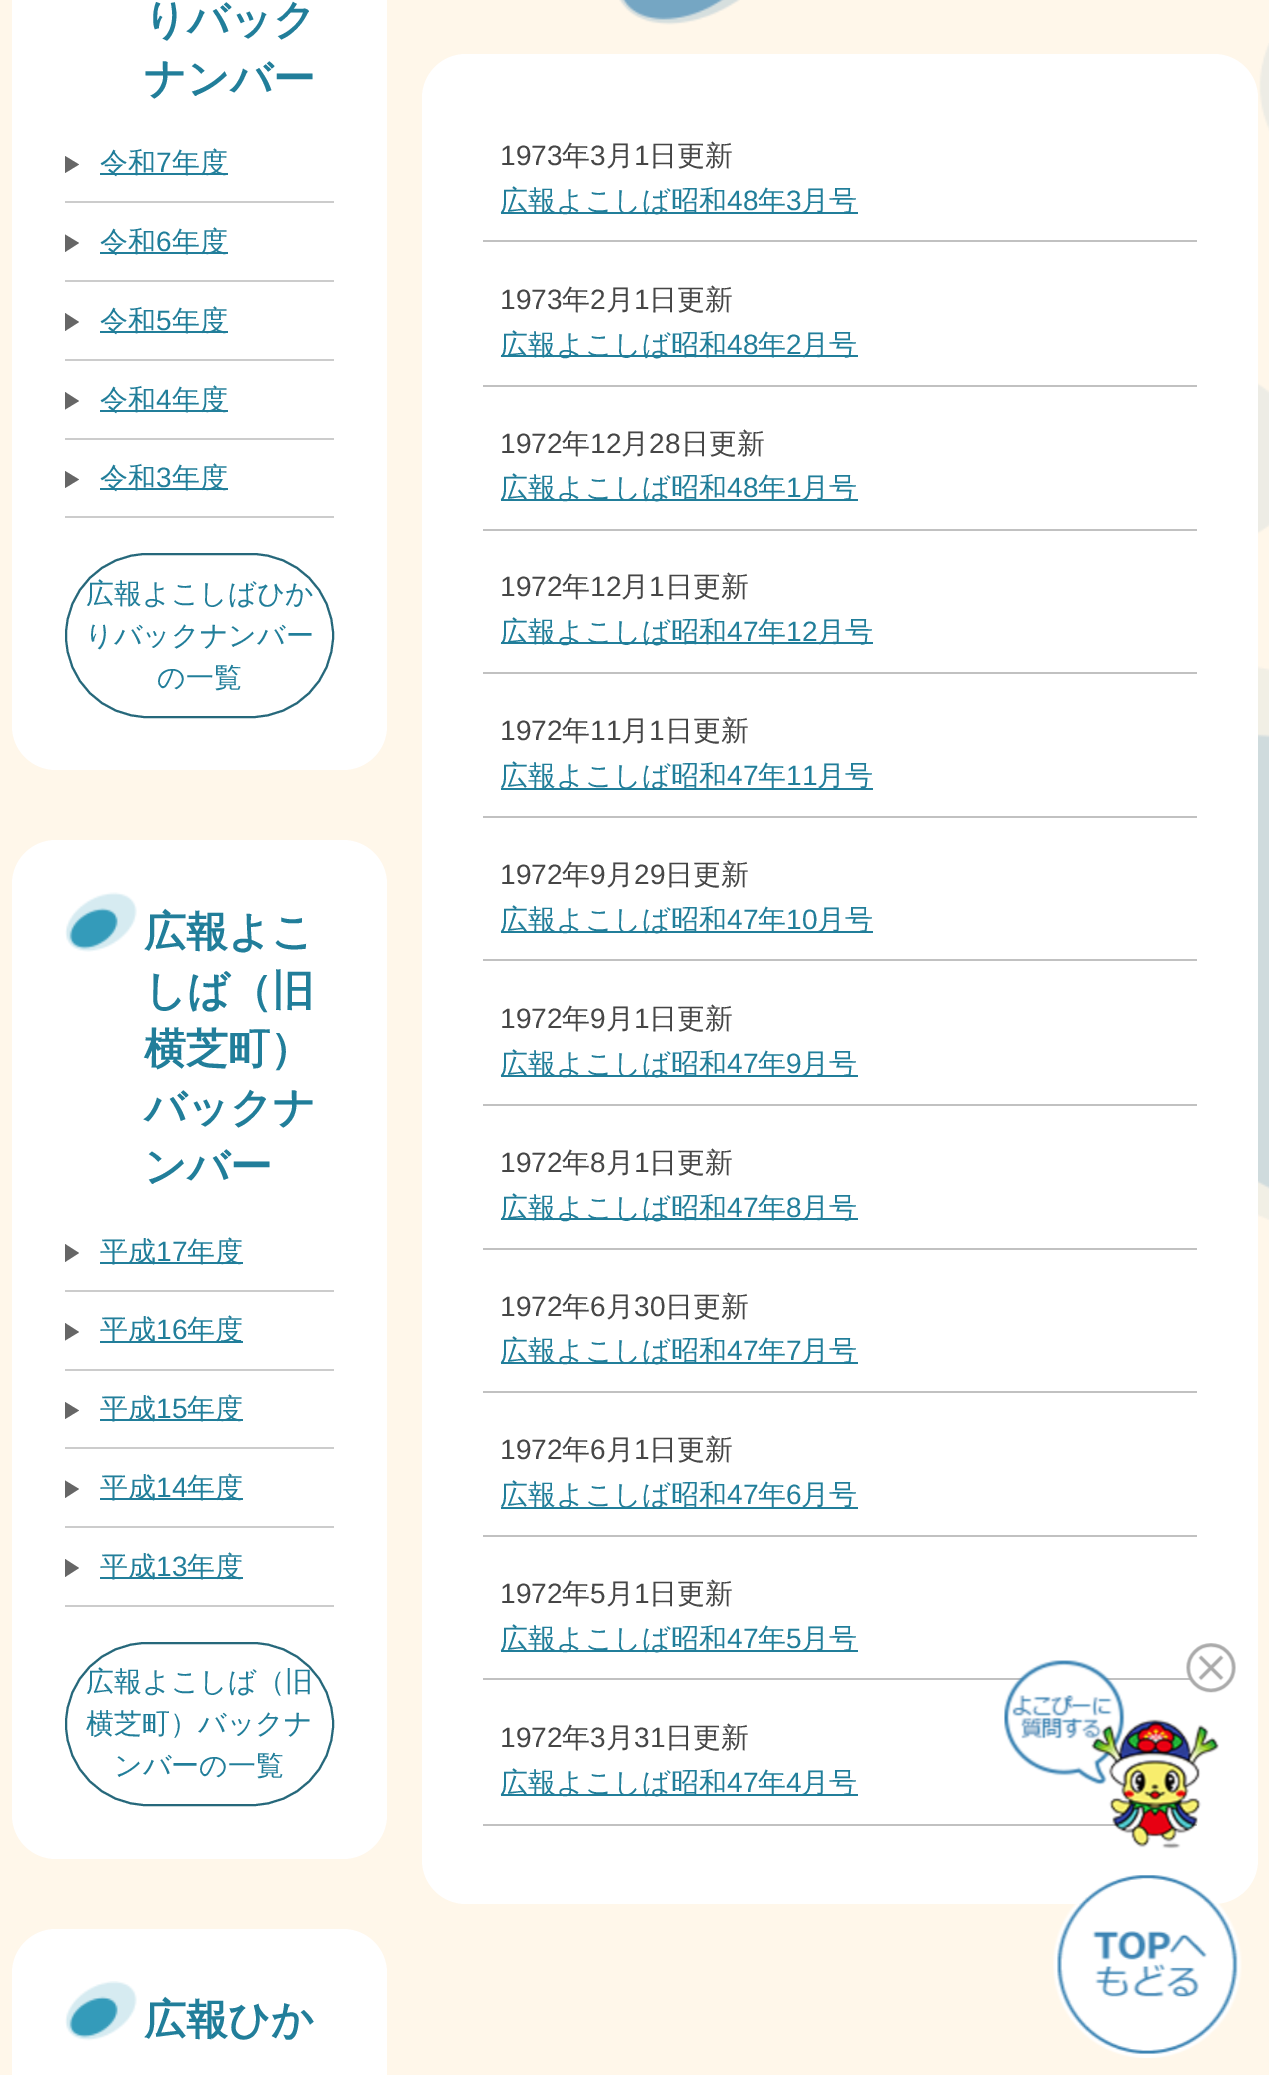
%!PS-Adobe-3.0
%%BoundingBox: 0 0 1269 2075
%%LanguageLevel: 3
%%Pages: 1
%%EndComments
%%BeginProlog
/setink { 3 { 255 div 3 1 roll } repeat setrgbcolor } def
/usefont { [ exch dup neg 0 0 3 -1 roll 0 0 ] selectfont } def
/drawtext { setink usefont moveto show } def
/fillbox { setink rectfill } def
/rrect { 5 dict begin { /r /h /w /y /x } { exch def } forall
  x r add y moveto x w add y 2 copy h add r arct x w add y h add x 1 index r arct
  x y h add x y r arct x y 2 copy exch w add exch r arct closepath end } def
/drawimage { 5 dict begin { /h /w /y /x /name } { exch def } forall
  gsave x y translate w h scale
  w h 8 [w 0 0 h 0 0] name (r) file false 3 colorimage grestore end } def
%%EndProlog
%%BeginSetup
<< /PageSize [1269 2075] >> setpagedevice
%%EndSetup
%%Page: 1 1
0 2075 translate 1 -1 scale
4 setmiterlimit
0 0 1269 2075 255 247 234 fillbox
(assets/img1.rgb) 1258 43 11 1177 drawimage
255 255 255 setink
12 -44 375 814 44 rrect fill
(りバック) 144 34 /WenQuanYiZenHei-Bold 42 33 126 154 drawtext
(ナンバー) 144 93 /WenQuanYiZenHei-Bold 42 33 126 154 drawtext
65 201 269 2 204 204 204 fillbox
102 102 102 setink
65 173 moveto 65 156 lineto 79 164.5 lineto closepath fill
100 173 128 2 33 126 154 fillbox
(令和) 100 172 /WenQuanYiZenHei-Medium 28 33 126 154 drawtext
(7) 156 172 /LiberationSans-Regular 28 33 126 154 drawtext
(年度) 172 172 /WenQuanYiZenHei-Medium 28 33 126 154 drawtext
65 280 269 2 204 204 204 fillbox
102 102 102 setink
65 252 moveto 65 234.5 lineto 79 243 lineto closepath fill
100 252 128 2 33 126 154 fillbox
(令和) 100 251 /WenQuanYiZenHei-Medium 28 33 126 154 drawtext
(6) 156 251 /LiberationSans-Regular 28 33 126 154 drawtext
(年度) 172 251 /WenQuanYiZenHei-Medium 28 33 126 154 drawtext
65 359 269 2 204 204 204 fillbox
102 102 102 setink
65 331 moveto 65 313 lineto 79 322 lineto closepath fill
100 331 128 2 33 126 154 fillbox
(令和) 100 330 /WenQuanYiZenHei-Medium 28 33 126 154 drawtext
(5) 156 330 /LiberationSans-Regular 28 33 126 154 drawtext
(年度) 172 330 /WenQuanYiZenHei-Medium 28 33 126 154 drawtext
65 438 269 2 204 204 204 fillbox
102 102 102 setink
65 409.5 moveto 65 392 lineto 79 401 lineto closepath fill
100 410 128 2 33 126 154 fillbox
(令和) 100 409 /WenQuanYiZenHei-Medium 28 33 126 154 drawtext
(4) 156 409 /LiberationSans-Regular 28 33 126 154 drawtext
(年度) 172 409 /WenQuanYiZenHei-Medium 28 33 126 154 drawtext
65 516 269 2 204 204 204 fillbox
102 102 102 setink
65 488 moveto 65 471 lineto 79 479.5 lineto closepath fill
100 488 128 2 33 126 154 fillbox
(令和) 100 487 /WenQuanYiZenHei-Medium 28 33 126 154 drawtext
(3) 156 487 /LiberationSans-Regular 28 33 126 154 drawtext
(年度) 172 487 /WenQuanYiZenHei-Medium 28 33 126 154 drawtext
38 104 123 setink
2 setlinewidth
66 554 267 163 81.5 rrect stroke
(広報よこしばひか) 86 603 /WenQuanYiZenHei-Medium 28 33 126 154 drawtext
(りバックナンバー) 85 645 /WenQuanYiZenHei-Medium 28 33 126 154 drawtext
(の一覧) 157 687 /WenQuanYiZenHei-Medium 28 33 126 154 drawtext
255 255 255 setink
12 840 375 1019 44 rrect fill
(assets/img2.rgb) 65 892 72 60 drawimage
(広報よこ) 144 946 /WenQuanYiZenHei-Bold 42 33 126 154 drawtext
(しば（旧) 144 1005 /WenQuanYiZenHei-Bold 42 33 126 154 drawtext
(横芝町）) 144 1063 /WenQuanYiZenHei-Bold 42 33 126 154 drawtext
(バックナ) 144 1122 /WenQuanYiZenHei-Bold 42 33 126 154 drawtext
(ンバー) 144 1181 /WenQuanYiZenHei-Bold 42 33 126 154 drawtext
65 1290 269 2 204 204 204 fillbox
102 102 102 setink
65 1262 moveto 65 1244 lineto 79 1253 lineto closepath fill
100 1262 143 2 33 126 154 fillbox
(平成) 100 1261 /WenQuanYiZenHei-Medium 28 33 126 154 drawtext
(17) 156 1261 /LiberationSans-Regular 28 33 126 154 drawtext
(年度) 187 1261 /WenQuanYiZenHei-Medium 28 33 126 154 drawtext
65 1369 269 2 204 204 204 fillbox
102 102 102 setink
65 1340.5 moveto 65 1323 lineto 79 1332 lineto closepath fill
100 1341 143 2 33 126 154 fillbox
(平成) 100 1339 /WenQuanYiZenHei-Medium 28 33 126 154 drawtext
(16) 156 1339 /LiberationSans-Regular 28 33 126 154 drawtext
(年度) 187 1339 /WenQuanYiZenHei-Medium 28 33 126 154 drawtext
65 1447 269 2 204 204 204 fillbox
102 102 102 setink
65 1419 moveto 65 1402 lineto 79 1410.5 lineto closepath fill
100 1419 143 2 33 126 154 fillbox
(平成) 100 1418 /WenQuanYiZenHei-Medium 28 33 126 154 drawtext
(15) 156 1418 /LiberationSans-Regular 28 33 126 154 drawtext
(年度) 187 1418 /WenQuanYiZenHei-Medium 28 33 126 154 drawtext
65 1526 269 2 204 204 204 fillbox
102 102 102 setink
65 1498 moveto 65 1480.5 lineto 79 1489 lineto closepath fill
100 1498 143 2 33 126 154 fillbox
(平成) 100 1497 /WenQuanYiZenHei-Medium 28 33 126 154 drawtext
(14) 156 1497 /LiberationSans-Regular 28 33 126 154 drawtext
(年度) 187 1497 /WenQuanYiZenHei-Medium 28 33 126 154 drawtext
65 1605 269 2 204 204 204 fillbox
102 102 102 setink
65 1577 moveto 65 1559 lineto 79 1568 lineto closepath fill
100 1577 143 2 33 126 154 fillbox
(平成) 100 1576 /WenQuanYiZenHei-Medium 28 33 126 154 drawtext
(13) 156 1576 /LiberationSans-Regular 28 33 126 154 drawtext
(年度) 187 1576 /WenQuanYiZenHei-Medium 28 33 126 154 drawtext
38 104 123 setink
66 1643 267 162 81 rrect stroke
(広報よこしば（旧) 86 1691 /WenQuanYiZenHei-Medium 28 33 126 154 drawtext
(横芝町）バックナ) 86 1733 /WenQuanYiZenHei-Medium 28 33 126 154 drawtext
(ンバーの一覧) 114 1775 /WenQuanYiZenHei-Medium 28 33 126 154 drawtext
255 255 255 setink
12 1929 375 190 44 rrect fill
(assets/img3.rgb) 65 1981 72 60 drawimage
(広報ひか) 144 2034 /WenQuanYiZenHei-Bold 42 33 126 154 drawtext
(assets/img4.rgb) 619 0 121 25 drawimage
255 255 255 setink
422 54 836 1850 44 rrect fill
483 240 714 2 193 193 193 fillbox
(1973) 500 165 /LiberationSans-Regular 28 70 70 70 drawtext
(年) 562 165 /WenQuanYiZenHei-Medium 28 70 70 70 drawtext
(3) 590 165 /LiberationSans-Regular 28 70 70 70 drawtext
(月) 606 165 /WenQuanYiZenHei-Medium 28 70 70 70 drawtext
(1) 634 165 /LiberationSans-Regular 28 70 70 70 drawtext
(日更新) 649 165 /WenQuanYiZenHei-Medium 28 70 70 70 drawtext
501 212 357 2 33 126 154 fillbox
(広報よこしば昭和) 500 210 /WenQuanYiZenHei-Medium 28 33 126 154 drawtext
(48) 727 210 /LiberationSans-Regular 28 33 126 154 drawtext
(年) 758 210 /WenQuanYiZenHei-Medium 28 33 126 154 drawtext
(3) 786 210 /LiberationSans-Regular 28 33 126 154 drawtext
(月号) 801 210 /WenQuanYiZenHei-Medium 28 33 126 154 drawtext
483 385 714 2 193 193 193 fillbox
(1973) 500 309 /LiberationSans-Regular 28 70 70 70 drawtext
(年) 562 309 /WenQuanYiZenHei-Medium 28 70 70 70 drawtext
(2) 590 309 /LiberationSans-Regular 28 70 70 70 drawtext
(月) 606 309 /WenQuanYiZenHei-Medium 28 70 70 70 drawtext
(1) 634 309 /LiberationSans-Regular 28 70 70 70 drawtext
(日更新) 649 309 /WenQuanYiZenHei-Medium 28 70 70 70 drawtext
501 355 357 2 33 126 154 fillbox
(広報よこしば昭和) 500 354 /WenQuanYiZenHei-Medium 28 33 126 154 drawtext
(48) 727 354 /LiberationSans-Regular 28 33 126 154 drawtext
(年) 758 354 /WenQuanYiZenHei-Medium 28 33 126 154 drawtext
(2) 786 354 /LiberationSans-Regular 28 33 126 154 drawtext
(月号) 801 354 /WenQuanYiZenHei-Medium 28 33 126 154 drawtext
483 529 714 2 193 193 193 fillbox
(1972) 500 453 /LiberationSans-Regular 28 70 70 70 drawtext
(年) 562 453 /WenQuanYiZenHei-Medium 28 70 70 70 drawtext
(12) 590 453 /LiberationSans-Regular 28 70 70 70 drawtext
(月) 621 453 /WenQuanYiZenHei-Medium 28 70 70 70 drawtext
(28) 649 453 /LiberationSans-Regular 28 70 70 70 drawtext
(日更新) 681 453 /WenQuanYiZenHei-Medium 28 70 70 70 drawtext
501 499 357 2 33 126 154 fillbox
(広報よこしば昭和) 500 497 /WenQuanYiZenHei-Medium 28 33 126 154 drawtext
(48) 727 497 /LiberationSans-Regular 28 33 126 154 drawtext
(年) 758 497 /WenQuanYiZenHei-Medium 28 33 126 154 drawtext
(1) 786 497 /LiberationSans-Regular 28 33 126 154 drawtext
(月号) 801 497 /WenQuanYiZenHei-Medium 28 33 126 154 drawtext
483 672 714 2 193 193 193 fillbox
(1972) 500 596 /LiberationSans-Regular 28 70 70 70 drawtext
(年) 562 596 /WenQuanYiZenHei-Medium 28 70 70 70 drawtext
(12) 590 596 /LiberationSans-Regular 28 70 70 70 drawtext
(月) 621 596 /WenQuanYiZenHei-Medium 28 70 70 70 drawtext
(1) 649 596 /LiberationSans-Regular 28 70 70 70 drawtext
(日更新) 665 596 /WenQuanYiZenHei-Medium 28 70 70 70 drawtext
501 642 372 2 33 126 154 fillbox
(広報よこしば昭和) 500 641 /WenQuanYiZenHei-Medium 28 33 126 154 drawtext
(47) 727 641 /LiberationSans-Regular 28 33 126 154 drawtext
(年) 758 641 /WenQuanYiZenHei-Medium 28 33 126 154 drawtext
(12) 786 641 /LiberationSans-Regular 28 33 126 154 drawtext
(月号) 817 641 /WenQuanYiZenHei-Medium 28 33 126 154 drawtext
483 816 714 2 193 193 193 fillbox
(1972) 500 740 /LiberationSans-Regular 28 70 70 70 drawtext
(年) 562 740 /WenQuanYiZenHei-Medium 28 70 70 70 drawtext
(11) 590 740 /LiberationSans-Regular 28 70 70 70 drawtext
(月) 621 740 /WenQuanYiZenHei-Medium 28 70 70 70 drawtext
(1) 649 740 /LiberationSans-Regular 28 70 70 70 drawtext
(日更新) 665 740 /WenQuanYiZenHei-Medium 28 70 70 70 drawtext
501 788 372 2 33 126 154 fillbox
(広報よこしば昭和) 500 785 /WenQuanYiZenHei-Medium 28 33 126 154 drawtext
(47) 727 785 /LiberationSans-Regular 28 33 126 154 drawtext
(年) 758 785 /WenQuanYiZenHei-Medium 28 33 126 154 drawtext
(11) 786 785 /LiberationSans-Regular 28 33 126 154 drawtext
(月号) 817 785 /WenQuanYiZenHei-Medium 28 33 126 154 drawtext
483 959 714 2 193 193 193 fillbox
(1972) 500 884 /LiberationSans-Regular 28 70 70 70 drawtext
(年) 562 884 /WenQuanYiZenHei-Medium 28 70 70 70 drawtext
(9) 590 884 /LiberationSans-Regular 28 70 70 70 drawtext
(月) 606 884 /WenQuanYiZenHei-Medium 28 70 70 70 drawtext
(29) 634 884 /LiberationSans-Regular 28 70 70 70 drawtext
(日更新) 665 884 /WenQuanYiZenHei-Medium 28 70 70 70 drawtext
501 931 372 2 33 126 154 fillbox
(広報よこしば昭和) 500 929 /WenQuanYiZenHei-Medium 28 33 126 154 drawtext
(47) 727 929 /LiberationSans-Regular 28 33 126 154 drawtext
(年) 758 929 /WenQuanYiZenHei-Medium 28 33 126 154 drawtext
(10) 786 929 /LiberationSans-Regular 28 33 126 154 drawtext
(月号) 817 929 /WenQuanYiZenHei-Medium 28 33 126 154 drawtext
483 1104 714 2 193 193 193 fillbox
(1972) 500 1028 /LiberationSans-Regular 28 70 70 70 drawtext
(年) 562 1028 /WenQuanYiZenHei-Medium 28 70 70 70 drawtext
(9) 590 1028 /LiberationSans-Regular 28 70 70 70 drawtext
(月) 606 1028 /WenQuanYiZenHei-Medium 28 70 70 70 drawtext
(1) 634 1028 /LiberationSans-Regular 28 70 70 70 drawtext
(日更新) 649 1028 /WenQuanYiZenHei-Medium 28 70 70 70 drawtext
501 1075 357 2 33 126 154 fillbox
(広報よこしば昭和) 500 1073 /WenQuanYiZenHei-Medium 28 33 126 154 drawtext
(47) 727 1073 /LiberationSans-Regular 28 33 126 154 drawtext
(年) 758 1073 /WenQuanYiZenHei-Medium 28 33 126 154 drawtext
(9) 786 1073 /LiberationSans-Regular 28 33 126 154 drawtext
(月号) 801 1073 /WenQuanYiZenHei-Medium 28 33 126 154 drawtext
483 1248 714 2 193 193 193 fillbox
(1972) 500 1172 /LiberationSans-Regular 28 70 70 70 drawtext
(年) 562 1172 /WenQuanYiZenHei-Medium 28 70 70 70 drawtext
(8) 590 1172 /LiberationSans-Regular 28 70 70 70 drawtext
(月) 606 1172 /WenQuanYiZenHei-Medium 28 70 70 70 drawtext
(1) 634 1172 /LiberationSans-Regular 28 70 70 70 drawtext
(日更新) 649 1172 /WenQuanYiZenHei-Medium 28 70 70 70 drawtext
501 1218 357 2 33 126 154 fillbox
(広報よこしば昭和) 500 1217 /WenQuanYiZenHei-Medium 28 33 126 154 drawtext
(47) 727 1217 /LiberationSans-Regular 28 33 126 154 drawtext
(年) 758 1217 /WenQuanYiZenHei-Medium 28 33 126 154 drawtext
(8) 786 1217 /LiberationSans-Regular 28 33 126 154 drawtext
(月号) 801 1217 /WenQuanYiZenHei-Medium 28 33 126 154 drawtext
483 1391 714 2 193 193 193 fillbox
(1972) 500 1316 /LiberationSans-Regular 28 70 70 70 drawtext
(年) 562 1316 /WenQuanYiZenHei-Medium 28 70 70 70 drawtext
(6) 590 1316 /LiberationSans-Regular 28 70 70 70 drawtext
(月) 606 1316 /WenQuanYiZenHei-Medium 28 70 70 70 drawtext
(30) 634 1316 /LiberationSans-Regular 28 70 70 70 drawtext
(日更新) 665 1316 /WenQuanYiZenHei-Medium 28 70 70 70 drawtext
501 1362 357 2 33 126 154 fillbox
(広報よこしば昭和) 500 1360 /WenQuanYiZenHei-Medium 28 33 126 154 drawtext
(47) 727 1360 /LiberationSans-Regular 28 33 126 154 drawtext
(年) 758 1360 /WenQuanYiZenHei-Medium 28 33 126 154 drawtext
(7) 786 1360 /LiberationSans-Regular 28 33 126 154 drawtext
(月号) 801 1360 /WenQuanYiZenHei-Medium 28 33 126 154 drawtext
483 1535 714 2 193 193 193 fillbox
(1972) 500 1459 /LiberationSans-Regular 28 70 70 70 drawtext
(年) 562 1459 /WenQuanYiZenHei-Medium 28 70 70 70 drawtext
(6) 590 1459 /LiberationSans-Regular 28 70 70 70 drawtext
(月) 606 1459 /WenQuanYiZenHei-Medium 28 70 70 70 drawtext
(1) 634 1459 /LiberationSans-Regular 28 70 70 70 drawtext
(日更新) 649 1459 /WenQuanYiZenHei-Medium 28 70 70 70 drawtext
501 1507 357 2 33 126 154 fillbox
(広報よこしば昭和) 500 1504 /WenQuanYiZenHei-Medium 28 33 126 154 drawtext
(47) 727 1504 /LiberationSans-Regular 28 33 126 154 drawtext
(年) 758 1504 /WenQuanYiZenHei-Medium 28 33 126 154 drawtext
(6) 786 1504 /LiberationSans-Regular 28 33 126 154 drawtext
(月号) 801 1504 /WenQuanYiZenHei-Medium 28 33 126 154 drawtext
483 1678 714 2 193 193 193 fillbox
(1972) 500 1603 /LiberationSans-Regular 28 70 70 70 drawtext
(年) 562 1603 /WenQuanYiZenHei-Medium 28 70 70 70 drawtext
(5) 590 1603 /LiberationSans-Regular 28 70 70 70 drawtext
(月) 606 1603 /WenQuanYiZenHei-Medium 28 70 70 70 drawtext
(1) 634 1603 /LiberationSans-Regular 28 70 70 70 drawtext
(日更新) 649 1603 /WenQuanYiZenHei-Medium 28 70 70 70 drawtext
501 1650 357 2 33 126 154 fillbox
(広報よこしば昭和) 500 1648 /WenQuanYiZenHei-Medium 28 33 126 154 drawtext
(47) 727 1648 /LiberationSans-Regular 28 33 126 154 drawtext
(年) 758 1648 /WenQuanYiZenHei-Medium 28 33 126 154 drawtext
(5) 786 1648 /LiberationSans-Regular 28 33 126 154 drawtext
(月号) 801 1648 /WenQuanYiZenHei-Medium 28 33 126 154 drawtext
483 1824 714 2 193 193 193 fillbox
(1972) 500 1747 /LiberationSans-Regular 28 70 70 70 drawtext
(年) 562 1747 /WenQuanYiZenHei-Medium 28 70 70 70 drawtext
(3) 590 1747 /LiberationSans-Regular 28 70 70 70 drawtext
(月) 606 1747 /WenQuanYiZenHei-Medium 28 70 70 70 drawtext
(31) 634 1747 /LiberationSans-Regular 28 70 70 70 drawtext
(日更新) 665 1747 /WenQuanYiZenHei-Medium 28 70 70 70 drawtext
501 1794 357 2 33 126 154 fillbox
(広報よこしば昭和) 500 1792 /WenQuanYiZenHei-Medium 28 33 126 154 drawtext
(47) 727 1792 /LiberationSans-Regular 28 33 126 154 drawtext
(年) 758 1792 /WenQuanYiZenHei-Medium 28 33 126 154 drawtext
(4) 786 1792 /LiberationSans-Regular 28 33 126 154 drawtext
(月号) 801 1792 /WenQuanYiZenHei-Medium 28 33 126 154 drawtext
(assets/img5.rgb) 1053 1875 189 183 drawimage
(assets/img6.rgb) 1004 1643 232 206 drawimage
showpage
%%EOF
